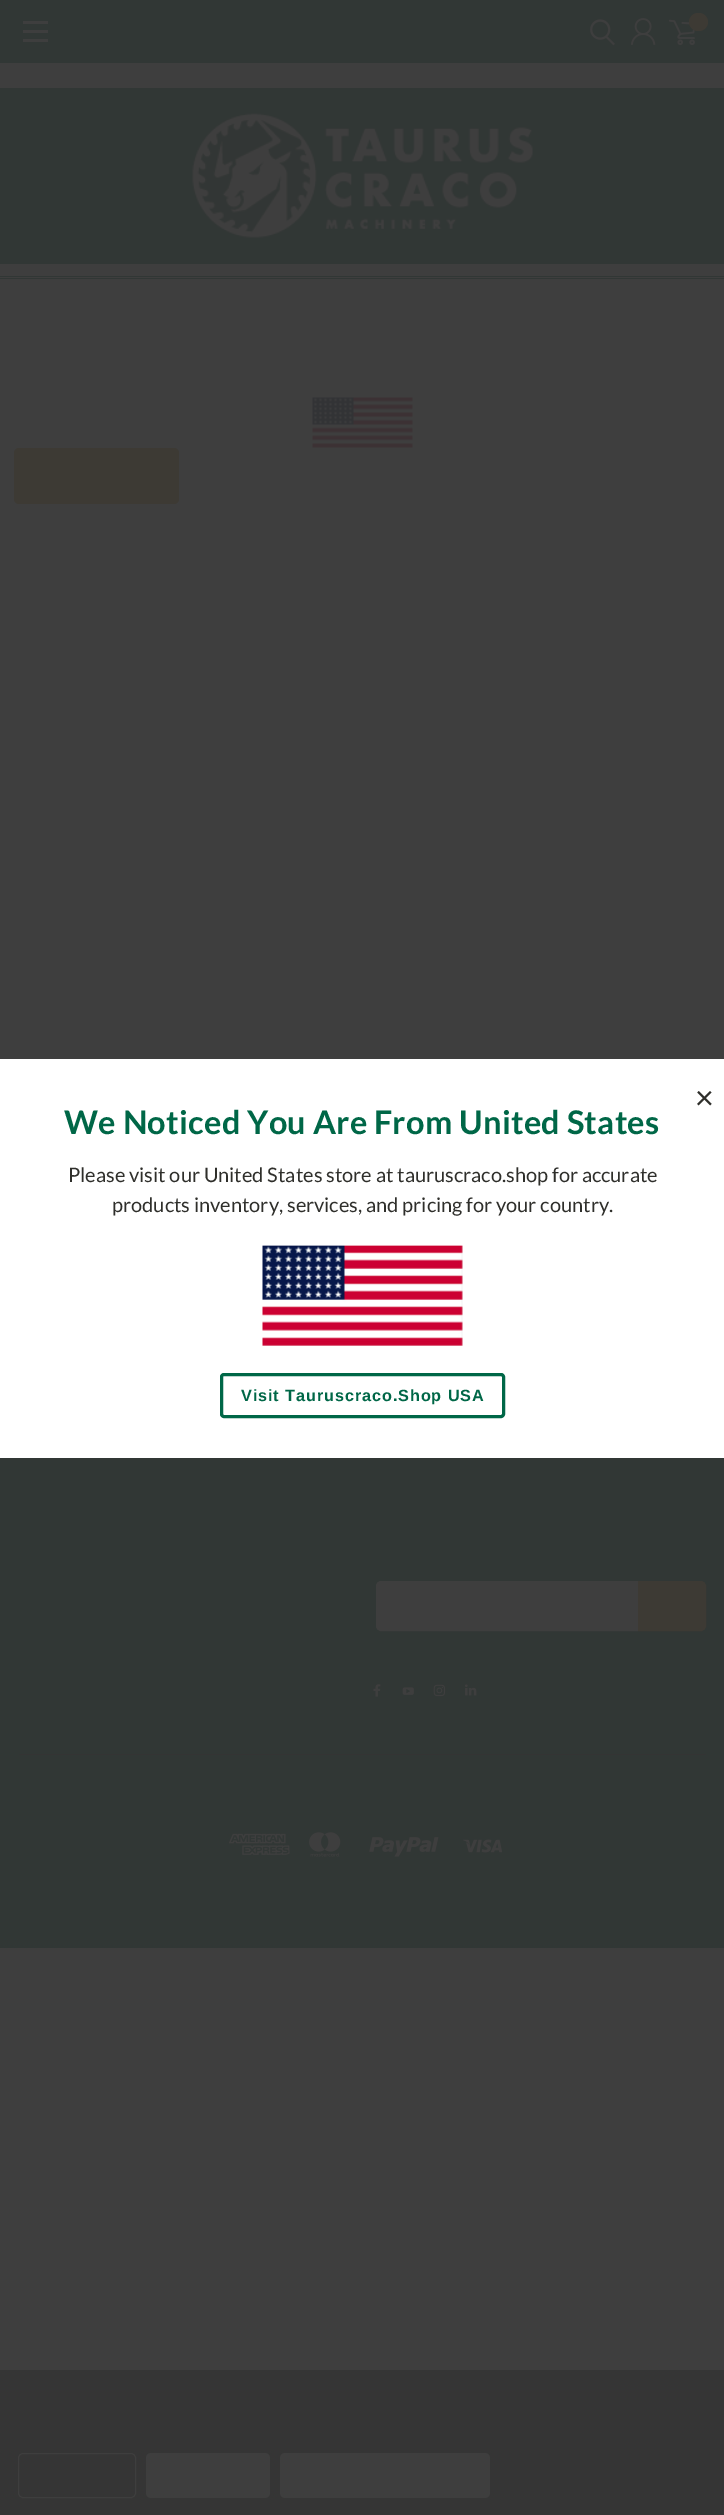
%!PS-Adobe-3.0
%%BoundingBox: 0 0 724 2515
%%LanguageLevel: 3
%%Pages: 1
%%EndComments
%%BeginProlog
/setink { 3 { 255 div 3 1 roll } repeat setrgbcolor } def
/usefont { [ exch dup neg 0 0 3 -1 roll 0 0 ] selectfont } def
/drawtext { setink usefont moveto show } def
/fillbox { setink rectfill } def
/rrect { 5 dict begin { /r /h /w /y /x } { exch def } forall
  x r add y moveto x w add y 2 copy h add r arct x w add y h add x 1 index r arct
  x y h add x y r arct x y 2 copy exch w add exch r arct closepath end } def
/drawimage { 5 dict begin { /h /w /y /x /name } { exch def } forall
  gsave x y translate w h scale
  w h 8 [w 0 0 h 0 0] name (r) file false 3 colorimage grestore end } def
%%EndProlog
%%BeginSetup
<< /PageSize [724 2515] >> setpagedevice
%%EndSetup
%%Page: 1 1
0 2515 translate 1 -1 scale
4 setmiterlimit
0 0 724 2515 62 62 62 fillbox
0 0 724 63 49 55 53 fillbox
23 30 25 3 62 62 62 fillbox
23 21 25 3 62 62 62 fillbox
23 39 25 3 62 62 62 fillbox
(assets/img1.rgb) 590 19 25 27 drawimage
(assets/img2.rgb) 631 18 25 27 drawimage
(assets/img3.rgb) 668 19 27 27 drawimage
61 58 52 setink
689 13 19 18 9 rrect fill
0 276 724 1 49 55 53 fillbox
0 278 724 1 49 55 53 fillbox
(assets/img4.rgb) 312 397 101 51 drawimage
61 58 52 setink
14 448 165 56 5 rrect fill
0 88 724 176 49 55 53 fillbox
(assets/img5.rgb) 192 113 341 125 drawimage
0 1059 724 399 255 255 255 fillbox
(×) 695 1109 /Lato-Regular 32.5 47 47 43 drawtext
/Lato-Bold 32.5 usefont
0 103 71 setink
64 1134 moveto 0.3 0 (We Noticed You Are From United States) ashow
(Please visit our United States store at tauruscraco.shop for accurate) 68 1182 /Lato-Regular 20 47 47 43 drawtext
(products inventory, services, and pricing for your country.) 112 1212 /Lato-Regular 20 47 47 43 drawtext
(assets/img6.rgb) 262 1245 201 101 drawimage
0 103 71 setink
3 setlinewidth
221.5 1374.5 282 42 2.5 rrect stroke
/LiberationSans-Bold 16.25 usefont
241 1401 moveto 0.9 0 (Visit Tauruscraco.Shop USA) ashow
0 1458 724 490 49 55 53 fillbox
62 62 62 setink
381 1581.5 moveto 637.5 1581.5 lineto 637.5 1630.5 lineto 381 1630.5 lineto 378.5 1630.5 376.5 1628.5 376.5 1626 curveto 376.5 1586 lineto 376.5 1583.5 378.5 1581.5 381 1581.5 curveto closepath gsave fill grestore
1 setlinewidth
stroke
61 58 52 setink
638.5 1581.5 moveto 701 1581.5 lineto 703.5 1581.5 705.5 1583.5 705.5 1586 curveto 705.5 1626 lineto 705.5 1628.5 703.5 1630.5 701 1630.5 curveto 638.5 1630.5 lineto closepath gsave fill grestore
stroke
(assets/img7.rgb) 373 1684 8 13 drawimage
(assets/img8.rgb) 402 1687 12 8 drawimage
(assets/img9.rgb) 433 1684 13 13 drawimage
(assets/img10.rgb) 465 1684 12 12 drawimage
19 1754 687 1 52 52 52 fillbox
(assets/img11.rgb) 229 1833 61 22 drawimage
(assets/img12.rgb) 309 1832 32 25 drawimage
(assets/img13.rgb) 369 1837 70 20 drawimage
(assets/img14.rgb) 463 1839 39 14 drawimage
0 2370 724 145 53 53 53 fillbox
62 62 62 setink
18.5 2453.5 117 44 4.5 rrect stroke
146 2453 124 45 5 rrect fill
280 2453 210 45 5 rrect fill
showpage
%%EOF
